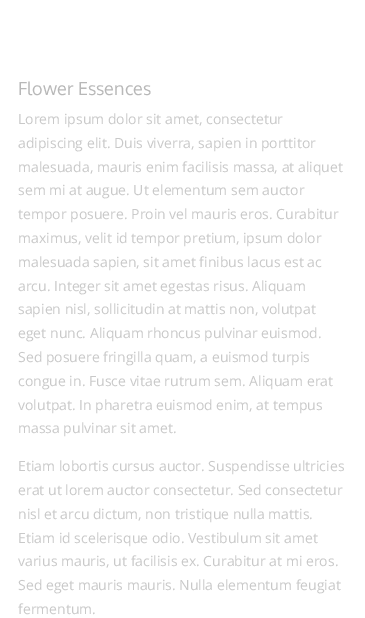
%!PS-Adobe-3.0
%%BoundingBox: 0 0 365 618
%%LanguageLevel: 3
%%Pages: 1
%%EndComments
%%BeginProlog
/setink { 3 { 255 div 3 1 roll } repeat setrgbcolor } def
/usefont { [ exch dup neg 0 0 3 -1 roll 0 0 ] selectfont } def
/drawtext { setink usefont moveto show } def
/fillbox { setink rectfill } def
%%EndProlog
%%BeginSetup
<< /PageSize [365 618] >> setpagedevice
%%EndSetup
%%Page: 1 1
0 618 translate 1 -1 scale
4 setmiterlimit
0 0 365 618 255 255 255 fillbox
(Flower Essences) 18 95 /Oxygen-Regular 18 184 184 184 drawtext
(Lorem ipsum dolor sit amet, consectetur) 18 124 /OpenSans-Regular 14 201 201 201 drawtext
(adipiscing elit. Duis viverra, sapien in porttitor) 18 148 /OpenSans-Regular 14 201 201 201 drawtext
(malesuada, mauris enim facilisis massa, at aliquet) 18 172 /OpenSans-Regular 14 201 201 201 drawtext
(sem mi at augue. Ut elementum sem auctor) 18 195 /OpenSans-Regular 14 201 201 201 drawtext
(tempor posuere. Proin vel mauris eros. Curabitur) 18 219 /OpenSans-Regular 14 201 201 201 drawtext
(maximus, velit id tempor pretium, ipsum dolor) 18 243 /OpenSans-Regular 14 201 201 201 drawtext
(malesuada sapien, sit amet finibus lacus est ac) 18 267 /OpenSans-Regular 14 201 201 201 drawtext
(arcu. Integer sit amet egestas risus. Aliquam) 18 291 /OpenSans-Regular 14 201 201 201 drawtext
(sapien nisl, sollicitudin at mattis non, volutpat) 18 314 /OpenSans-Regular 14 201 201 201 drawtext
(eget nunc. Aliquam rhoncus pulvinar euismod.) 18 338 /OpenSans-Regular 14 201 201 201 drawtext
(Sed posuere fringilla quam, a euismod turpis) 18 362 /OpenSans-Regular 14 201 201 201 drawtext
(congue in. Fusce vitae rutrum sem. Aliquam erat) 18 386 /OpenSans-Regular 14 201 201 201 drawtext
(volutpat. In pharetra euismod enim, at tempus) 18 410 /OpenSans-Regular 14 201 201 201 drawtext
(massa pulvinar sit amet.) 18 433 /OpenSans-Regular 14 201 201 201 drawtext
(Etiam lobortis cursus auctor. Suspendisse ultricies) 18 471 /OpenSans-Regular 14 201 201 201 drawtext
(erat ut lorem auctor consectetur. Sed consectetur) 18 495 /OpenSans-Regular 14 201 201 201 drawtext
(nisl et arcu dictum, non tristique nulla mattis.) 18 519 /OpenSans-Regular 14 201 201 201 drawtext
(Etiam id scelerisque odio. Vestibulum sit amet) 18 543 /OpenSans-Regular 14 201 201 201 drawtext
(varius mauris, ut facilisis ex. Curabitur at mi eros.) 18 566 /OpenSans-Regular 14 201 201 201 drawtext
(Sed eget mauris mauris. Nulla elementum feugiat) 18 590 /OpenSans-Regular 14 201 201 201 drawtext
(fermentum.) 18 614 /OpenSans-Regular 14 201 201 201 drawtext
showpage
%%EOF
